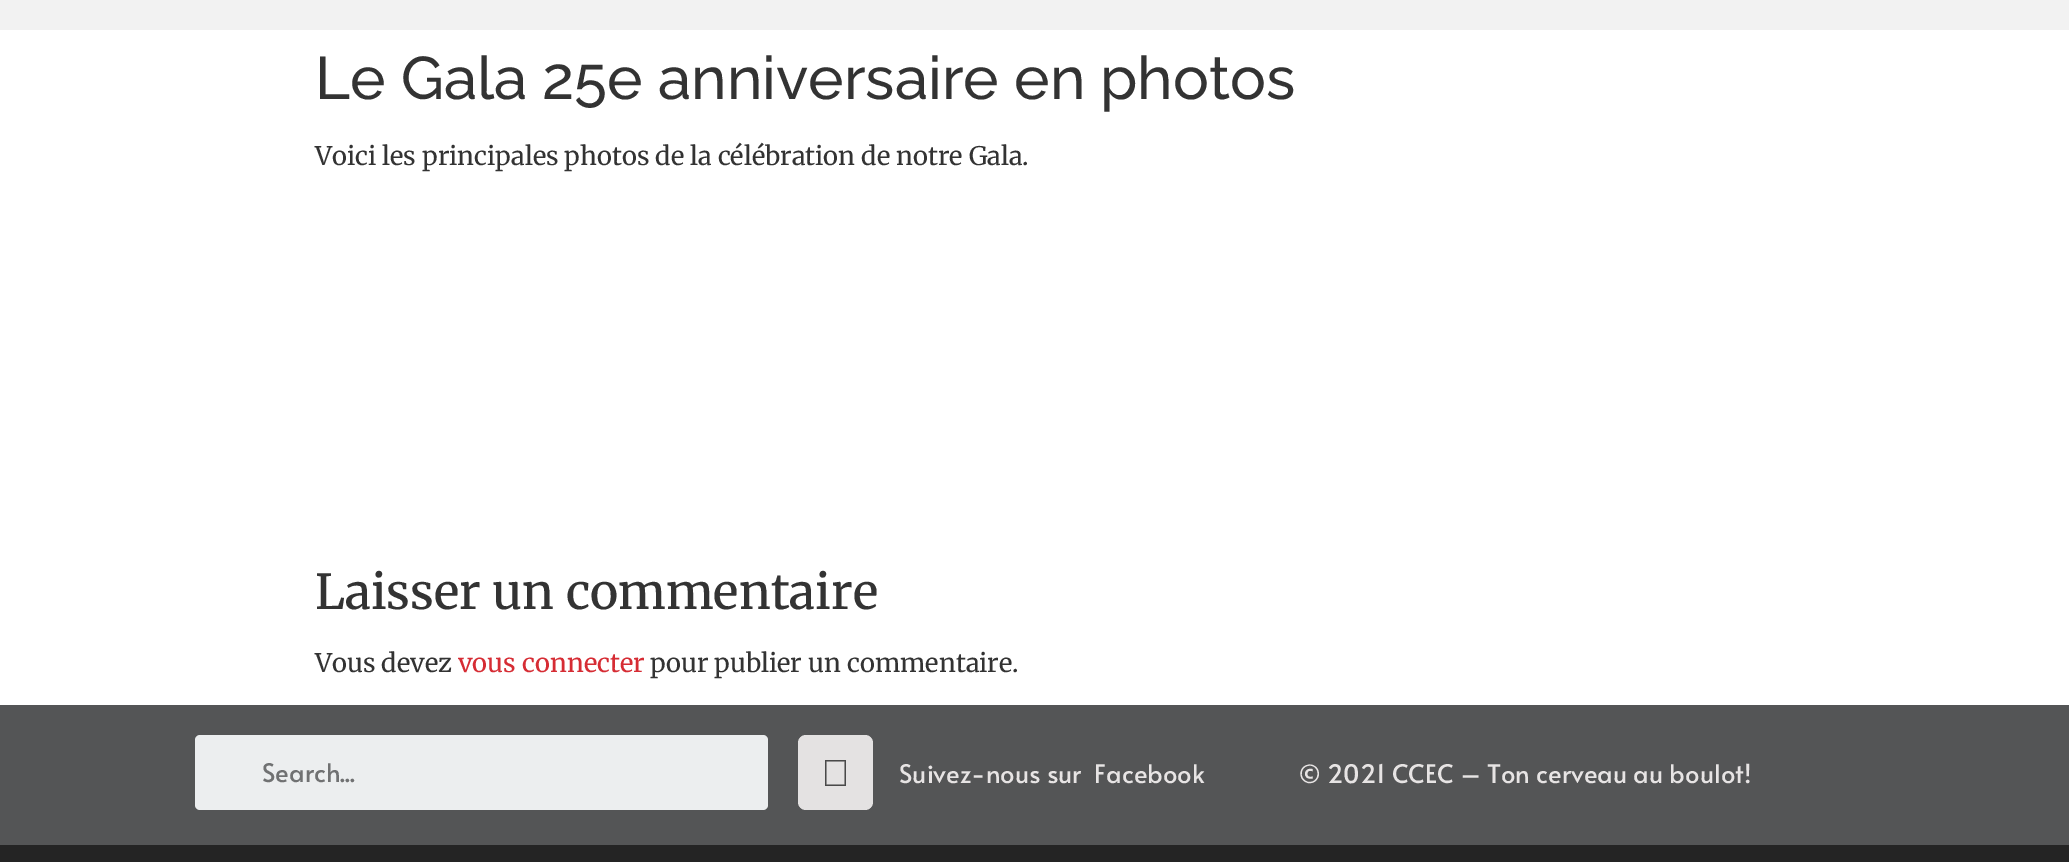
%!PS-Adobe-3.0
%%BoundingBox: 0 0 2069 862
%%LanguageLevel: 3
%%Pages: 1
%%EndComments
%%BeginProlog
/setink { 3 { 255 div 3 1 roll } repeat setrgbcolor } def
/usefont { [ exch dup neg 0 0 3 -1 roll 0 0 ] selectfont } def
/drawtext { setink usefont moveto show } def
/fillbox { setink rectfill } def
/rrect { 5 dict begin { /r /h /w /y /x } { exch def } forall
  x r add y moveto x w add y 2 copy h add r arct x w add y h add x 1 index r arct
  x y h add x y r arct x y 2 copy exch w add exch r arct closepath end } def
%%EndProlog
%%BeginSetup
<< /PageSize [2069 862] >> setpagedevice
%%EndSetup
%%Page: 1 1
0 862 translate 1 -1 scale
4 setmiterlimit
0 0 2069 862 255 255 255 fillbox
0 0 2069 30 242 242 242 fillbox
(Le Gala 25e anniversaire en photos) 315 99 /Raleway-Medium 60 51 51 51 drawtext
(Voici les principales photos de la célébration de notre Gala.) 315 165 /Merriweather-Regular 25.5 51 51 51 drawtext
(Laisser un commentaire) 315 609 /Merriweather-Medium 48 51 51 51 drawtext
(Vous devez) 315 672 /Merriweather-Regular 25.5 51 51 51 drawtext
(vous connecter) 458 672 /Merriweather-Regular 25.5 214 44 52 drawtext
(pour publier un commentaire.) 650 672 /Merriweather-Regular 25.5 51 51 51 drawtext
0 705 2069 140 84 85 86 fillbox
236 238 239 setink
195 735 573 75 5 rrect fill
(Search...) 262 782 /Alata-Regular 25.5 112 113 114 drawtext
228 226 226 setink
798 735 75 75 8 rrect fill
73 73 73 setink
825 760 moveto 846 760 lineto 846 786 lineto 825 786 lineto closepath 826.5 761.5 moveto 826.5 784.5 lineto 844.5 784.5 lineto 844.5 761.5 lineto closepath fill
(Suivez-nous sur  Facebook) 899 783 /Alata-Regular 25.5 231 228 228 drawtext
(© 2021 CCEC – Ton cerveau au boulot!) 1299 783 /Alata-Regular 25.5 231 228 228 drawtext
0 845 2069 17 36 36 36 fillbox
showpage
%%EOF
